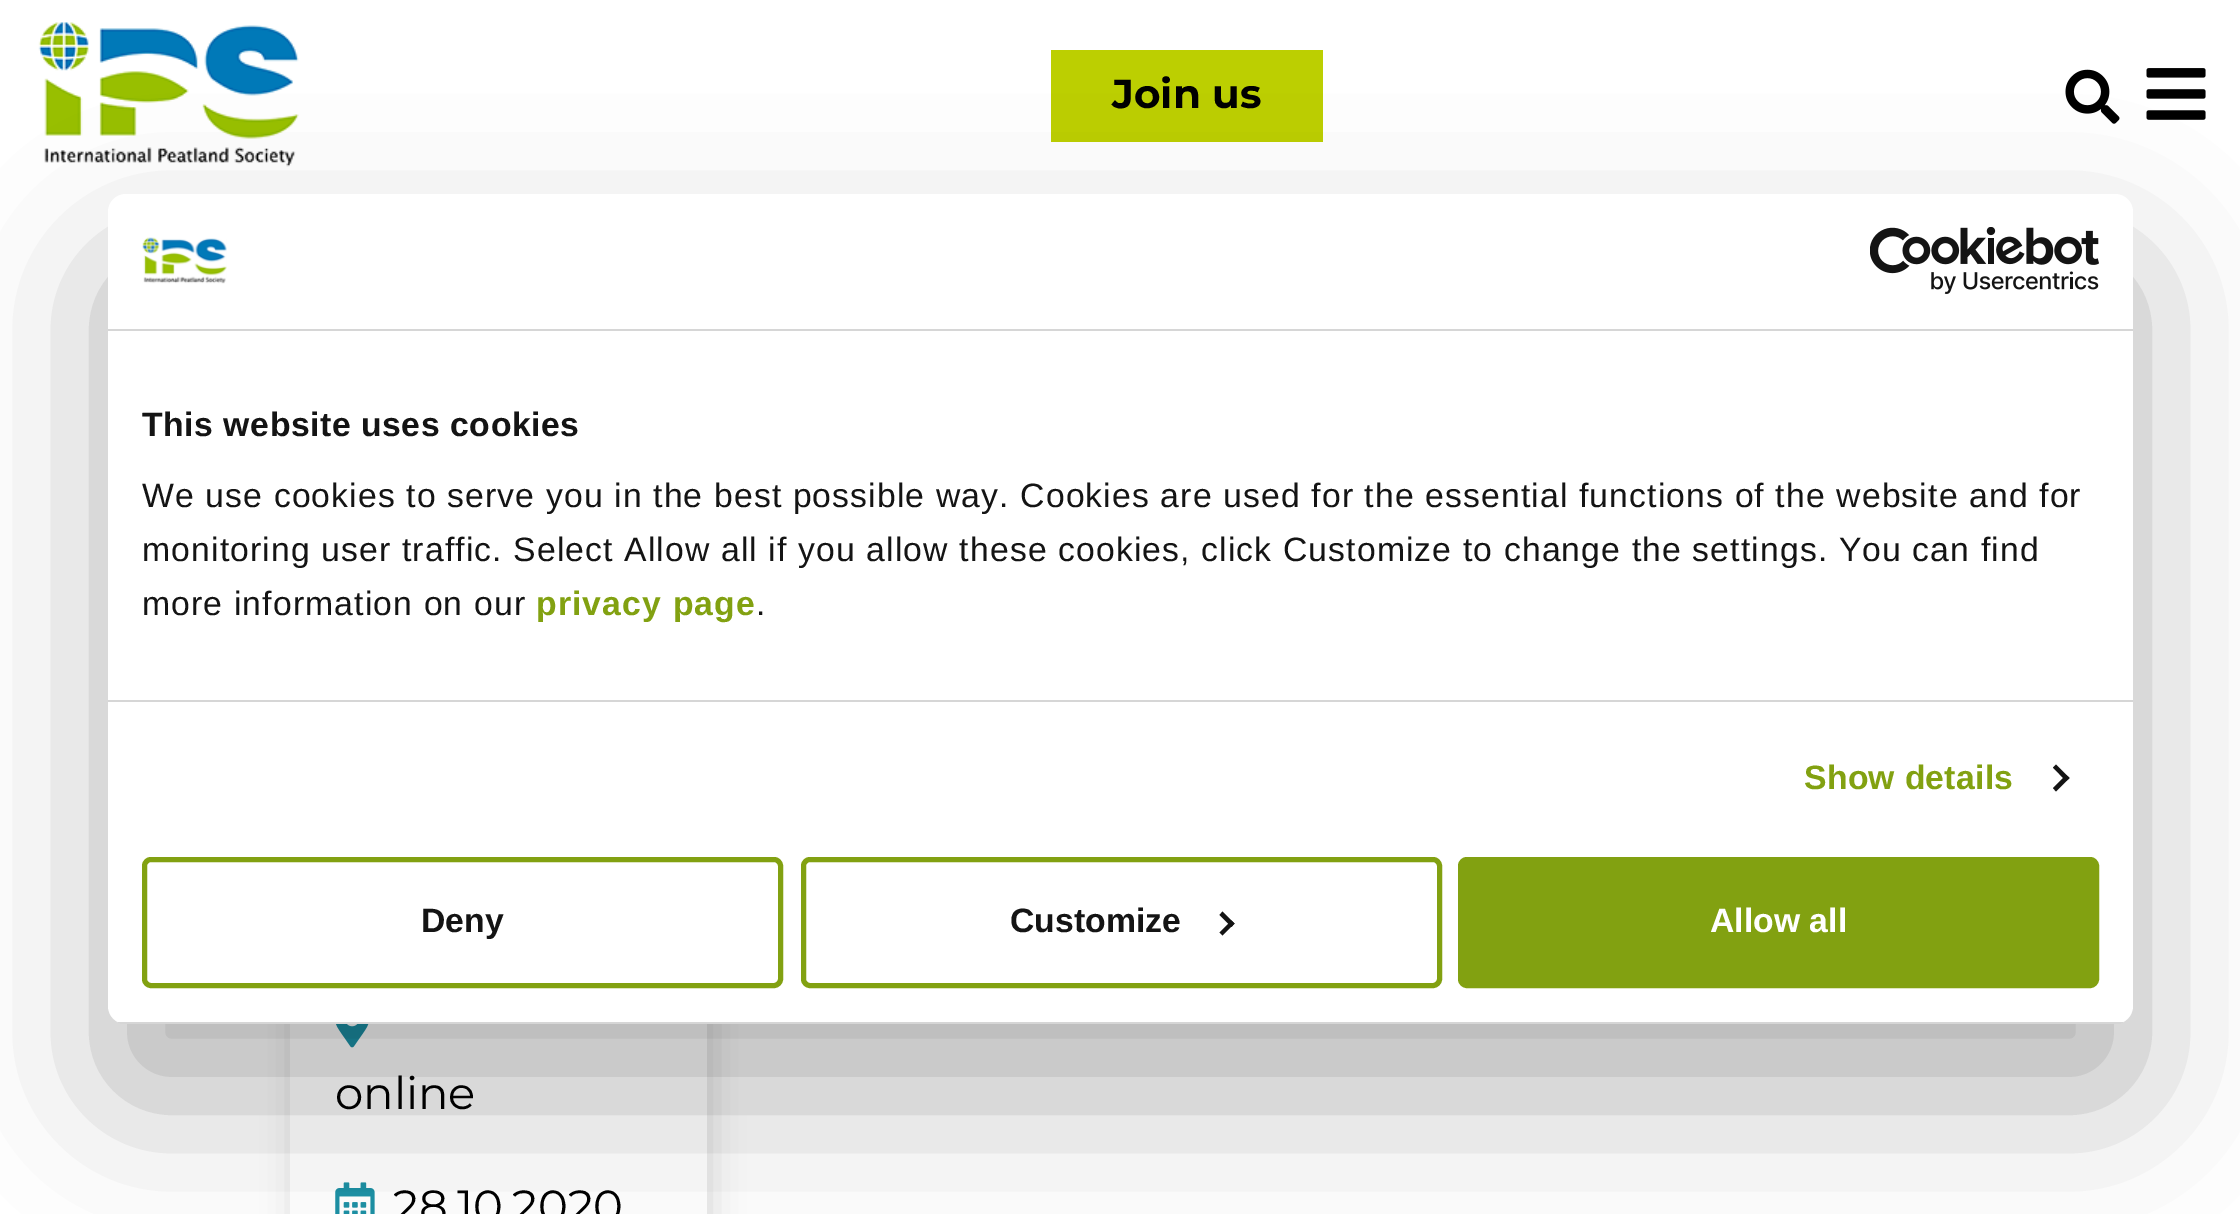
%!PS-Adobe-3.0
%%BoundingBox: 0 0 2240 1214
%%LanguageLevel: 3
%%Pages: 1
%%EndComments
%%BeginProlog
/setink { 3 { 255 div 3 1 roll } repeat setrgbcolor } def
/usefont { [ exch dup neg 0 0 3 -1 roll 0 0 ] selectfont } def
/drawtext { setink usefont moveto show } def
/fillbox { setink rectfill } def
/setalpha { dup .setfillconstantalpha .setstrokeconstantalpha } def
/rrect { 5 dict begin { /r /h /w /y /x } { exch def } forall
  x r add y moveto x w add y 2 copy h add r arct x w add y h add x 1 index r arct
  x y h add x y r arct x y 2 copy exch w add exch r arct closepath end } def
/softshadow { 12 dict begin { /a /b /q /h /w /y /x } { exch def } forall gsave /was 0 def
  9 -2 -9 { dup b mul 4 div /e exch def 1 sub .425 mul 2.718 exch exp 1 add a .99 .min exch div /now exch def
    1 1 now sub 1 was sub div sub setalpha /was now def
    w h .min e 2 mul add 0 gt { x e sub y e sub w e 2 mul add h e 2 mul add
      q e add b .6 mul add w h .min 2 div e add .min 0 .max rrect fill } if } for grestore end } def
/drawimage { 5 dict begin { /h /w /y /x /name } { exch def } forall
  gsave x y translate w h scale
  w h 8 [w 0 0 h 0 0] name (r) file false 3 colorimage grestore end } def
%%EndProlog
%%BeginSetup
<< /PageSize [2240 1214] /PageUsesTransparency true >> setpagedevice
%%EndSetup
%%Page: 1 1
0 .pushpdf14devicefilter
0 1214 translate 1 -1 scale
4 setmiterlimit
0 0 2240 1214 255 255 255 fillbox
(assets/img1.rgb) 38 22 261 145 drawimage
1051 50 272 92 188 207 1 fillbox
(Join us) 1112 108 /Montserrat-Bold 40.5 0 0 0 drawtext
(assets/img2.rgb) 2065 69 55 55 drawimage
(assets/img3.rgb) 2146 68 60 52 drawimage
297 961 412 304 0 17 0.15 softshadow
290 1024 417 190 255 255 255 fillbox
(assets/img4.rgb) 336 1024 33 24 drawimage
(online) 335 1109 /Montserrat-Regular 45 0 0 0 drawtext
(assets/img5.rgb) 335 1182 40 32 drawimage
(28.10.2020) 393 1222 /Montserrat-Regular 45 0 0 0 drawtext
108 266 2025 830 18 76.5 0.3 softshadow
255 255 255 setink
108 194 2025 830 18 rrect fill
108 329 2025 2 214 214 214 fillbox
(assets/img6.rgb) 142 237 85 47 drawimage
(assets/img7.rgb) 1870 227 229 67 drawimage
108 700 2025 2 214 214 214 fillbox
/LiberationSans-Bold 33.75 usefont
20 20 20 setink
142 436 moveto 0.55 0 (This website uses cookies) ashow
/LiberationSans-Regular 33.75 usefont
142 507 moveto 1.12 0 (We use cookies to serve you in the best possible way. Cookies are used for the essential functions of the website and for) ashow
142 561 moveto 1.12 0 (monitoring user traffic. Select Allow all if you allow these cookies, click Customize to change the settings. You can find) ashow
142 615 moveto 1.12 0 (more information on our) ashow
/LiberationSans-Bold 33.75 usefont
130 161 17 setink
536 615 moveto 1.12 0 (privacy page) ashow
/LiberationSans-Regular 33.75 usefont
20 20 20 setink
756 615 moveto 1.12 0 (.) ashow
/LiberationSans-Bold 33.75 usefont
130 161 17 setink
1804 789 moveto 0.25 0 (Show details) ashow
20 20 20 setink
2056 764.5 moveto 2069.5 778 lineto 2066 781 lineto 2053 767.5 lineto closepath fill
2066 775 moveto 2069.5 778 lineto 2056 791.5 lineto 2053 788 lineto closepath fill
gsave
108 194 2025 830 18 rrect clip newpath
118 1022 2005 2 214 214 214 fillbox
grestore
130 161 17 setink
5 setlinewidth
144.5 859.5 636 126 6.5 rrect stroke
(Deny) 421 932 /LiberationSans-Bold 33.75 20 20 20 drawtext
130 161 17 setink
803.5 859.5 636 126 6.5 rrect stroke
(Customize) 1010 932 /LiberationSans-Bold 33.75 20 20 20 drawtext
1222.5 911.5 moveto 1234.5 923.5 lineto 1231.5 927 lineto 1219.5 915 lineto closepath fill
1231.5 920.5 moveto 1234.5 923.5 lineto 1222.5 935.5 lineto 1219.5 932.5 lineto closepath fill
130 161 17 setink
1460.5 859.5 636 126 6.5 rrect gsave fill grestore
stroke
(Allow all) 1710 932 /LiberationSans-Bold 33.75 255 255 255 drawtext
.poppdf14devicefilter showpage
%%EOF
